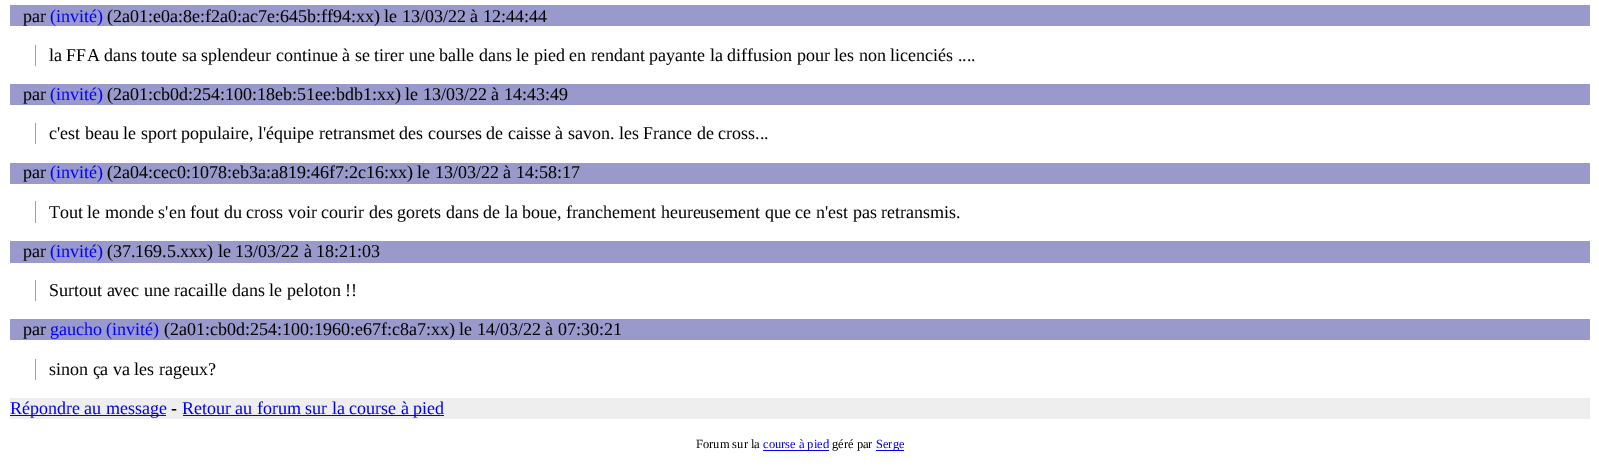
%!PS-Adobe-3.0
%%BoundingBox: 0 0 1599 468
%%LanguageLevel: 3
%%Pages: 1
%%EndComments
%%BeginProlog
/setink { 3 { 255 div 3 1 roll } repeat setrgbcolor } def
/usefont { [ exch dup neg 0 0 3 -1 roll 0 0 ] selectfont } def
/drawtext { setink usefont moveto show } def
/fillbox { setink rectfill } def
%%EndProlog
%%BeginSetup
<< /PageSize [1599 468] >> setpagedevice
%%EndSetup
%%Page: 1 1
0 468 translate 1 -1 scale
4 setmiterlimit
0 0 1599 468 255 255 255 fillbox
10 5 1580 21 153 153 204 fillbox
(par) 23 22 /LiberationSerif-Regular 18 0 0 0 drawtext
(\(invité\)) 50 22 /LiberationSerif-Regular 18 0 0 255 drawtext
(\(2a01:e0a:8e:f2a0:ac7e:645b:ff94:xx\) le 13/03/22 à 12:44:44) 107 22 /LiberationSerif-Regular 18 0 0 0 drawtext
35 45 1 21 153 153 204 fillbox
(la FFA dans toute sa splendeur continue à se tirer une balle dans le pied en rendant payante la diffusion pour les non licenciés ....) 49 61 /LiberationSerif-Regular 18 0 0 0 drawtext
10 84 1580 21 153 153 204 fillbox
(par) 23 100 /LiberationSerif-Regular 18 0 0 0 drawtext
(\(invité\)) 50 100 /LiberationSerif-Regular 18 0 0 255 drawtext
(\(2a01:cb0d:254:100:18eb:51ee:bdb1:xx\) le 13/03/22 à 14:43:49) 107 100 /LiberationSerif-Regular 18 0 0 0 drawtext
35 123 1 21 153 153 204 fillbox
(c'est beau le sport populaire, l'équipe retransmet des courses de caisse à savon. les France de cross...) 49 139 /LiberationSerif-Regular 18 0 0 0 drawtext
10 163 1580 21 153 153 204 fillbox
(par) 23 178 /LiberationSerif-Regular 18 0 0 0 drawtext
(\(invité\)) 50 178 /LiberationSerif-Regular 18 0 0 255 drawtext
(\(2a04:cec0:1078:eb3a:a819:46f7:2c16:xx\) le 13/03/22 à 14:58:17) 107 178 /LiberationSerif-Regular 18 0 0 0 drawtext
35 201 1 22 153 153 204 fillbox
(Tout le monde s'en fout du cross voir courir des gorets dans de la boue, franchement heureusement que ce n'est pas retransmis.) 49 218 /LiberationSerif-Regular 18 0 0 0 drawtext
10 241 1580 22 153 153 204 fillbox
(par) 23 257 /LiberationSerif-Regular 18 0 0 0 drawtext
(\(invité\)) 50 257 /LiberationSerif-Regular 18 0 0 255 drawtext
(\(37.169.5.xxx\) le 13/03/22 à 18:21:03) 107 257 /LiberationSerif-Regular 18 0 0 0 drawtext
35 280 1 21 153 153 204 fillbox
(Surtout avec une racaille dans le peloton !!) 49 296 /LiberationSerif-Regular 18 0 0 0 drawtext
10 319 1580 21 153 153 204 fillbox
(par) 23 335 /LiberationSerif-Regular 18 0 0 0 drawtext
(gaucho \(invité\)) 50 335 /LiberationSerif-Regular 18 0 0 255 drawtext
(\(2a01:cb0d:254:100:1960:e67f:c8a7:xx\) le 14/03/22 à 07:30:21) 164 335 /LiberationSerif-Regular 18 0 0 0 drawtext
35 359 1 21 153 153 204 fillbox
(sinon ça va les rageux?) 49 375 /LiberationSerif-Regular 18 0 0 0 drawtext
10 398 1580 21 238 238 238 fillbox
10 415 156 1 0 0 238 fillbox
(Répondre au message) 10 414 /LiberationSerif-Regular 18 0 0 238 drawtext
(-) 171 414 /LiberationSerif-Regular 18 0 0 0 drawtext
183 415 261 1 0 0 238 fillbox
(Retour au forum sur la course à pied) 182 414 /LiberationSerif-Regular 18 0 0 238 drawtext
(Forum sur la) 696 448 /LiberationSerif-Regular 12.5 0 0 0 drawtext
763 450 66 1 0 0 238 fillbox
(course à pied) 763 448 /LiberationSerif-Regular 12.5 0 0 238 drawtext
(géré par) 832 448 /LiberationSerif-Regular 12.5 0 0 0 drawtext
876 450 28 1 0 0 238 fillbox
(Serge) 876 448 /LiberationSerif-Regular 12.5 0 0 238 drawtext
showpage
%%EOF
